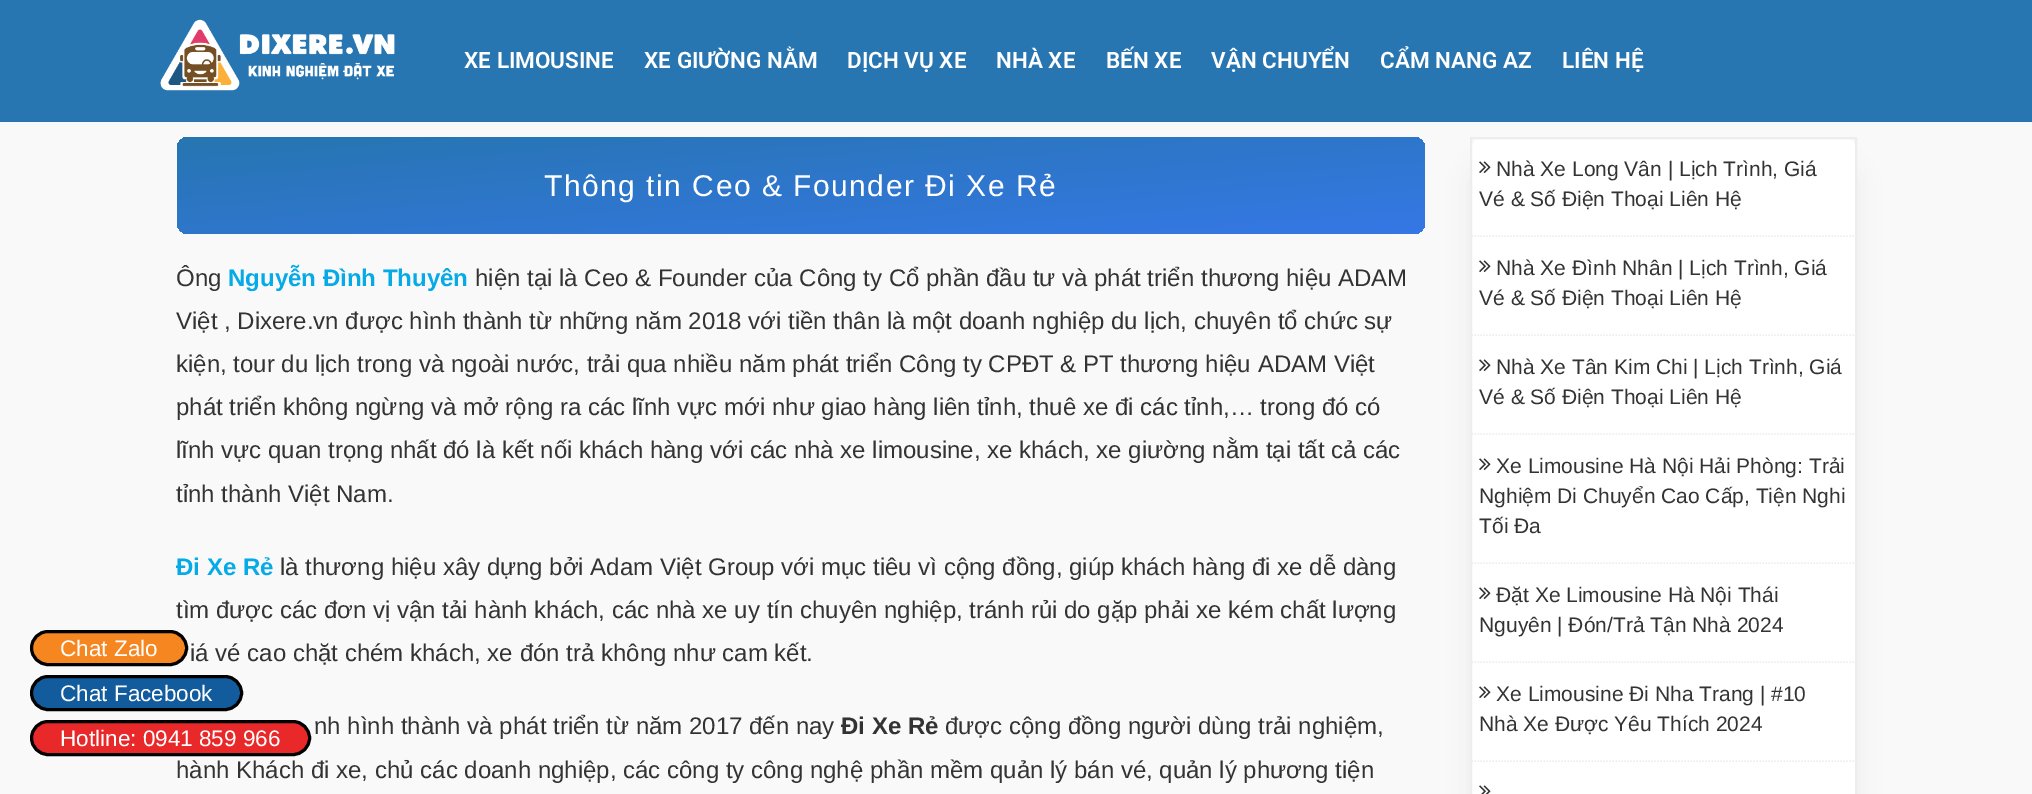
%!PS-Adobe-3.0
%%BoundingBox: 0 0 2032 794
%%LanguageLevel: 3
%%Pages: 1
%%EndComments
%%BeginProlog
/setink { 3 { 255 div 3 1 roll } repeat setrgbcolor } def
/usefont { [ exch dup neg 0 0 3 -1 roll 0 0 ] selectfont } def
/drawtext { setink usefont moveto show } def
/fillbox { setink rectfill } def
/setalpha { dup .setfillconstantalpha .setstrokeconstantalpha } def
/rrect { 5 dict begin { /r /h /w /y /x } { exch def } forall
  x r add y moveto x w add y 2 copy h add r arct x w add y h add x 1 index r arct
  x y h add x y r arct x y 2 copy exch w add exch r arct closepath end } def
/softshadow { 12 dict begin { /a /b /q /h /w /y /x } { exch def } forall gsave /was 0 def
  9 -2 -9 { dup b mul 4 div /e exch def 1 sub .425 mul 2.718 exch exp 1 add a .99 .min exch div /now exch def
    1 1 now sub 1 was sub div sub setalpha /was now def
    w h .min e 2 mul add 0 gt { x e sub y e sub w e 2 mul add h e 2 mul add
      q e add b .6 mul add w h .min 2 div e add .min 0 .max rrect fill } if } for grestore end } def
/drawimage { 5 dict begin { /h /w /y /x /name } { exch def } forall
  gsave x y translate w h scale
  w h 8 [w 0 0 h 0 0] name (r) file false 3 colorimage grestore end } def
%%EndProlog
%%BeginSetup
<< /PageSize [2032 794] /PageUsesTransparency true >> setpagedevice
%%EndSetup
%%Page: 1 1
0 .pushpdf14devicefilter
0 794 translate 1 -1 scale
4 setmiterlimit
0 0 2032 794 39 117 177 fillbox
0 122 2032 672 249 249 249 fillbox
245 134 32 setink
31.5 631.5 155 33 16.5 rrect gsave fill grestore
0 0 0 setink
3 setlinewidth
stroke
(Chat Zalo) 60 656 /LiberationSans-Regular 22.5 255 255 255 drawtext
18 92 158 setink
31.5 676.5 210 33 16.5 rrect gsave fill grestore
0 0 0 setink
stroke
(Chat Facebook) 60 701 /LiberationSans-Regular 22.5 255 255 255 drawtext
232 40 41 setink
31.5 721.5 278 33 16.5 rrect gsave fill grestore
0 0 0 setink
stroke
(Hotline: 0941 859 966) 60 746 /LiberationSans-Regular 22.5 255 255 255 drawtext
(assets/img1.rgb) 160 19 235 72 drawimage
(XE LIMOUSINE) 464 68 /Roboto-SemiBold 22.5 255 255 255 drawtext
(XE GIƯỜNG NẰM) 644 68 /Roboto-SemiBold 22.5 255 255 255 drawtext
(DỊCH VỤ XE) 847 68 /Roboto-SemiBold 22.5 255 255 255 drawtext
(NHÀ XE) 996 68 /Roboto-SemiBold 22.5 255 255 255 drawtext
(BẾN XE) 1106 68 /Roboto-SemiBold 22.5 255 255 255 drawtext
(VẬN CHUYỂN) 1211 68 /Roboto-SemiBold 22.5 255 255 255 drawtext
(CẨM NANG AZ) 1380 68 /Roboto-SemiBold 22.5 255 255 255 drawtext
(LIÊN HỆ) 1562 68 /Roboto-SemiBold 22.5 255 255 255 drawtext
gsave 177 137 1248 97 11 rrect clip newpath
<< /ShadingType 2 /ColorSpace /DeviceRGB /Coords [793 88 809 282] /Extend [true true] /Function << /FunctionType 2 /Domain [0 1] /C0 [0.153 0.459 0.694] /C1 [0.208 0.471 0.898] /N 1 >> >> shfill grestore
/LiberationSans-Regular 30 usefont
544 196 moveto 1.5 0 (Thông tin Ceo & Founder Đi Xe Rẻ) ashow
(Ông) 176 286 /LiberationSans-Regular 24 51 51 51 drawtext
(Nguyễn Đình Thuyên) 228 286 /LiberationSans-Bold 24 5 170 230 drawtext
(hiện tại là Ceo & Founder của Công ty Cổ phần đầu tư và phát triển thương hiệu ADAM) 475 286 /LiberationSans-Regular 24 51 51 51 drawtext
(Việt , Dixere.vn được hình thành từ những năm 2018 với tiền thân là một doanh nghiệp du lịch, chuyên tổ chức sự) 176 329 /LiberationSans-Regular 24 51 51 51 drawtext
(kiện, tour du lịch trong và ngoài nước, trải qua nhiều năm phát triển Công ty CPĐT & PT thương hiệu ADAM Việt) 176 372 /LiberationSans-Regular 24 51 51 51 drawtext
(phát triển không ngừng và mở rộng ra các lĩnh vực mới như giao hàng liên tỉnh, thuê xe đi các tỉnh,… trong đó có) 176 415 /LiberationSans-Regular 24 51 51 51 drawtext
(lĩnh vực quan trọng nhất đó là kết nối khách hàng với các nhà xe limousine, xe khách, xe giường nằm tại tất cả các) 176 458 /LiberationSans-Regular 24 51 51 51 drawtext
(tỉnh thành Việt Nam.) 176 502 /LiberationSans-Regular 24 51 51 51 drawtext
(Đi Xe Rẻ) 176 575 /LiberationSans-Bold 24 5 170 230 drawtext
(là thương hiệu xây dựng bởi Adam Việt Group với mục tiêu vì cộng đồng, giúp khách hàng đi xe dễ dàng) 280 575 /LiberationSans-Regular 24 51 51 51 drawtext
(tìm được các đơn vị vận tải hành khách, các nhà xe uy tín chuyên nghiệp, tránh rủi do gặp phải xe kém chất lượng) 176 618 /LiberationSans-Regular 24 51 51 51 drawtext
(iá vé cao chặt chém khách, xe đón trả không như cam kết.) 190 661 /LiberationSans-Regular 24 51 51 51 drawtext
(nh hình thành và phát triển từ năm 2017 đến nay) 314 734 /LiberationSans-Regular 24 51 51 51 drawtext
(Đi Xe Rẻ) 841 734 /LiberationSans-Bold 24 51 51 51 drawtext
(được cộng đồng người dùng trải nghiệm,) 945 734 /LiberationSans-Regular 24 51 51 51 drawtext
(hành Khách đi xe, chủ các doanh nghiệp, các công ty công nghệ phần mềm quản lý bán vé, quản lý phương tiện) 176 778 /LiberationSans-Regular 24 51 51 51 drawtext
0 0 0 setink
1470 167 387 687 15 15 0.05 softshadow
255 255 255 setink
1470 137 387 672 15 rrect fill
237 237 237 setink
2 setlinewidth
1471 138 385 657 rectstroke
1.5 setlinewidth
[1.5 1.5] 0 setdash
1471.5 236 moveto 1855.5 236 lineto stroke
(assets/img2.rgb) 1479 161 12 13 drawimage
(Nhà Xe Long Vân | Lịch Trình, Giá) 1496 176 /LiberationSans-Regular 21 51 51 51 drawtext
(Vé & Số Điện Thoại Liên Hệ) 1479 206 /LiberationSans-Regular 21 51 51 51 drawtext
237 237 237 setink
1471.5 335 moveto 1855.5 335 lineto stroke
(assets/img2.rgb) 1479 260 12 13 drawimage
(Nhà Xe Đình Nhân | Lịch Trình, Giá) 1496 275 /LiberationSans-Regular 21 51 51 51 drawtext
(Vé & Số Điện Thoại Liên Hệ) 1479 305 /LiberationSans-Regular 21 51 51 51 drawtext
237 237 237 setink
1471.5 434 moveto 1855.5 434 lineto stroke
(assets/img2.rgb) 1479 359 12 13 drawimage
(Nhà Xe Tân Kim Chi | Lịch Trình, Giá) 1496 374 /LiberationSans-Regular 21 51 51 51 drawtext
(Vé & Số Điện Thoại Liên Hệ) 1479 404 /LiberationSans-Regular 21 51 51 51 drawtext
237 237 237 setink
1471.5 563 moveto 1855.5 563 lineto stroke
(assets/img2.rgb) 1479 458 12 13 drawimage
(Xe Limousine Hà Nội Hải Phòng: Trải) 1496 473 /LiberationSans-Regular 21 51 51 51 drawtext
(Nghiệm Di Chuyển Cao Cấp, Tiện Nghi) 1479 503 /LiberationSans-Regular 21 51 51 51 drawtext
(Tối Đa) 1479 533 /LiberationSans-Regular 21 51 51 51 drawtext
237 237 237 setink
1471.5 662 moveto 1855.5 662 lineto stroke
(assets/img2.rgb) 1479 587 12 13 drawimage
(Đặt Xe Limousine Hà Nội Thái) 1496 602 /LiberationSans-Regular 21 51 51 51 drawtext
(Nguyên | Đón/Trả Tận Nhà 2024) 1479 632 /LiberationSans-Regular 21 51 51 51 drawtext
237 237 237 setink
1471.5 761 moveto 1855.5 761 lineto stroke
(assets/img2.rgb) 1479 686 12 13 drawimage
(Xe Limousine Đi Nha Trang | #10) 1496 701 /LiberationSans-Regular 21 51 51 51 drawtext
(Nhà Xe Được Yêu Thích 2024) 1479 731 /LiberationSans-Regular 21 51 51 51 drawtext
(assets/img3.rgb) 1479 785 12 9 drawimage
.poppdf14devicefilter showpage
%%EOF
